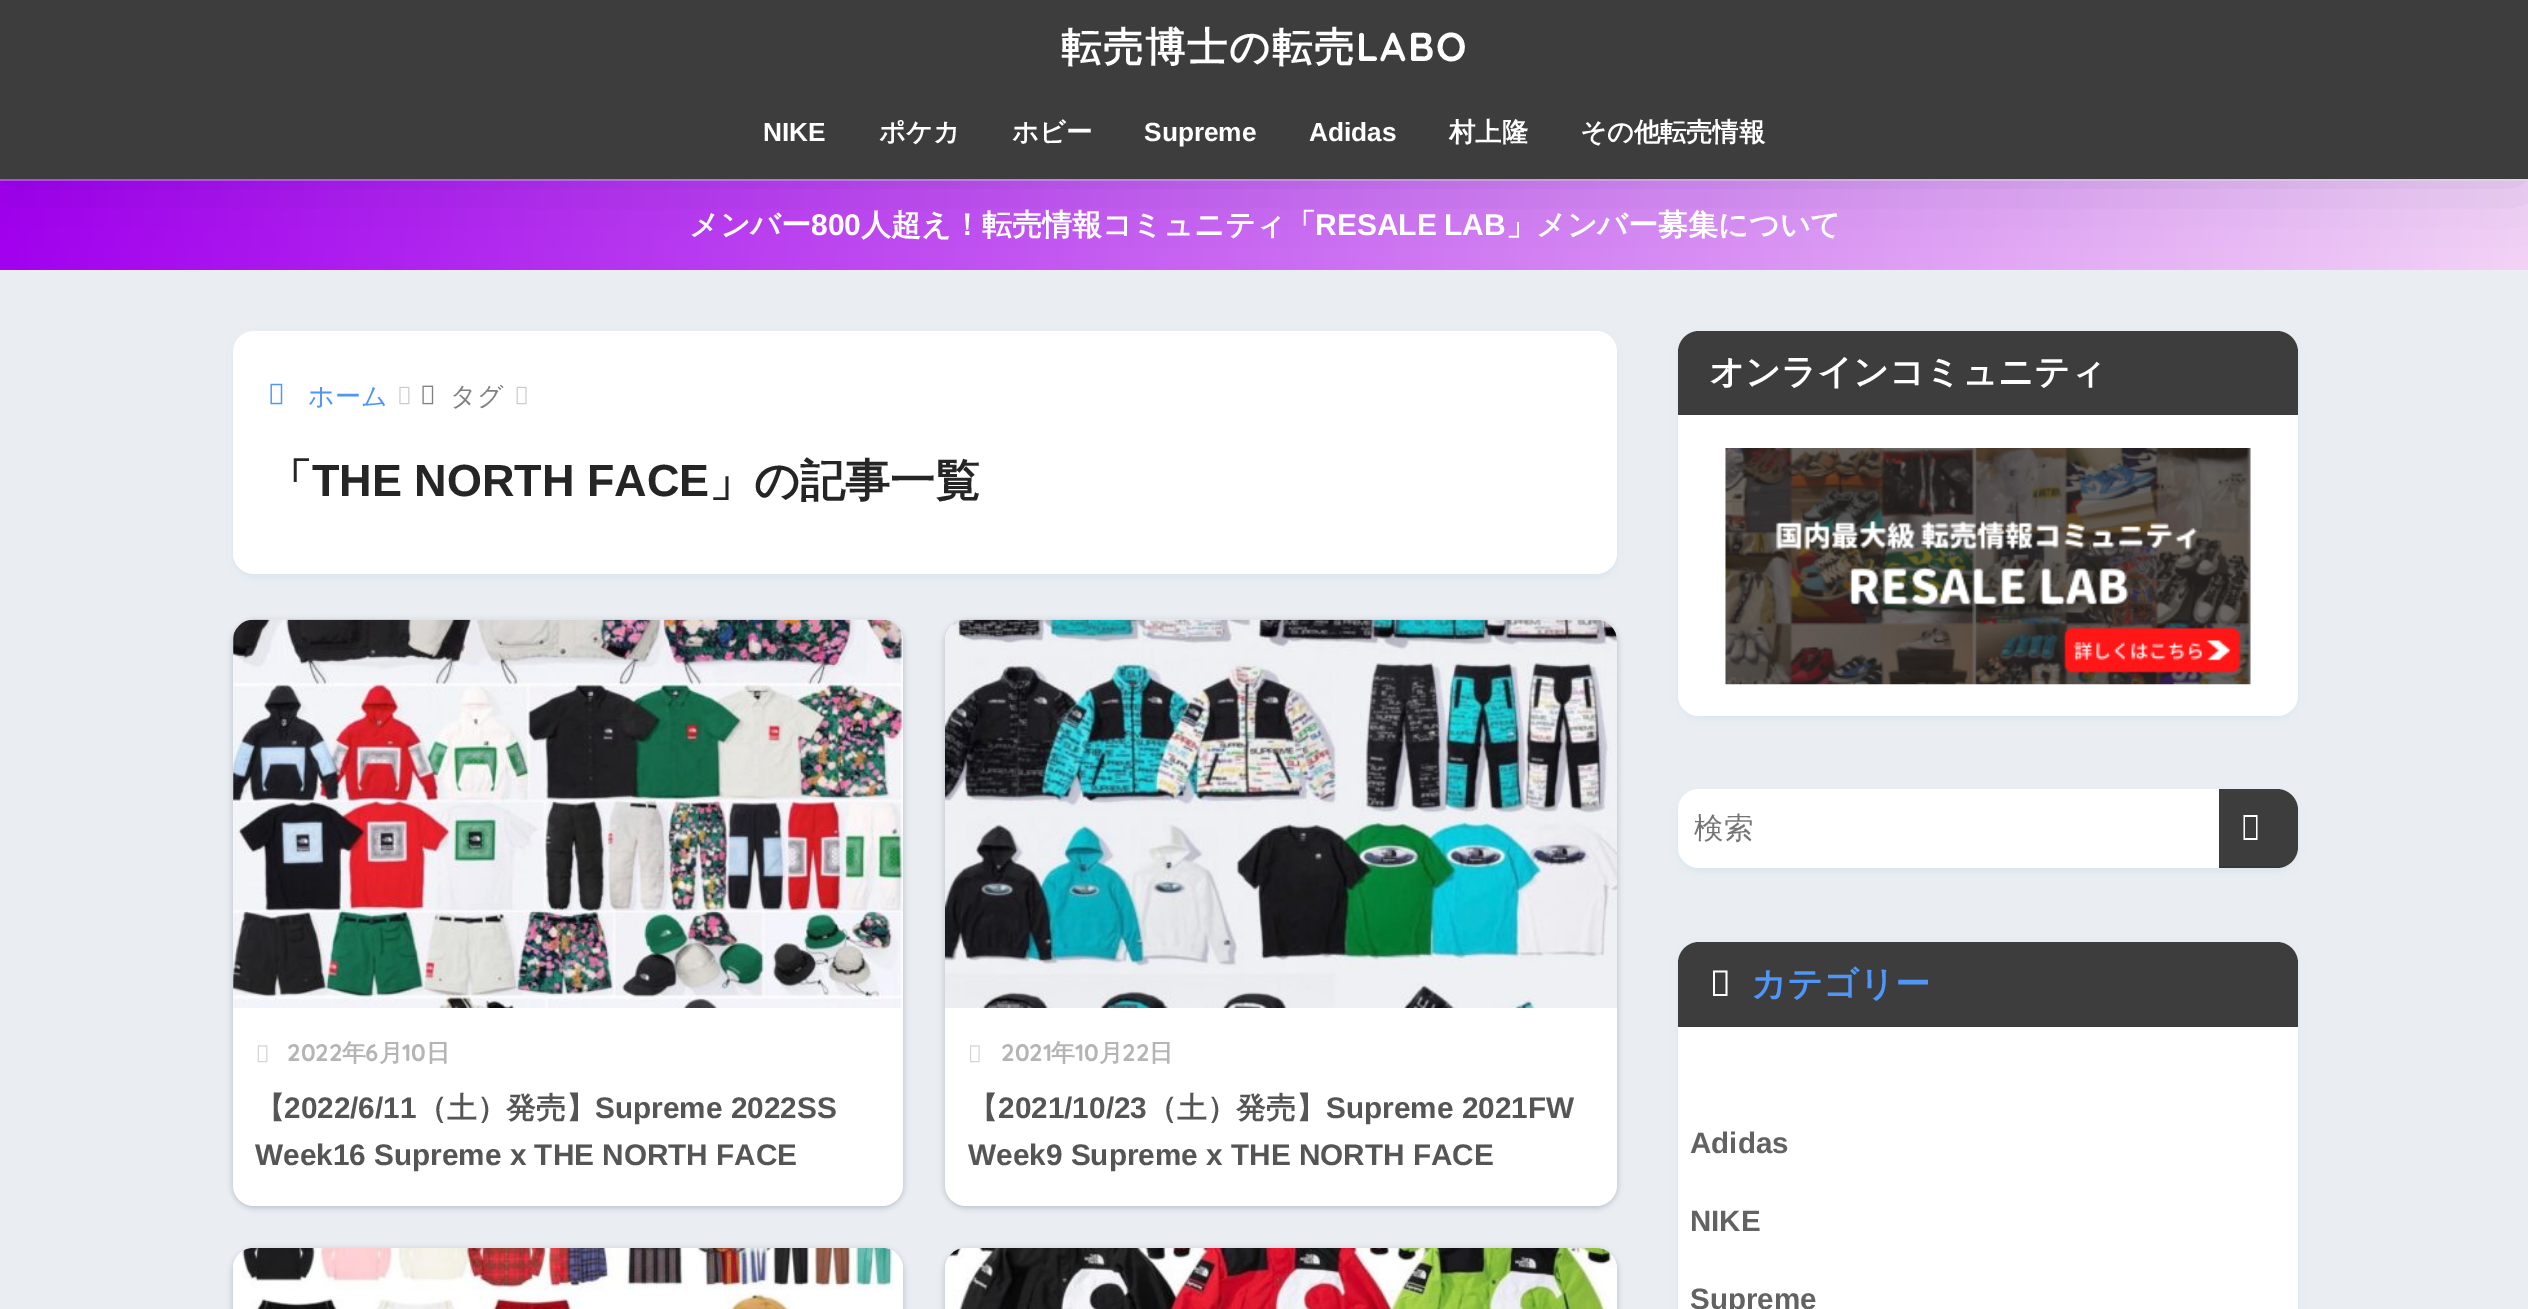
%!PS-Adobe-3.0
%%BoundingBox: 0 0 2528 1309
%%LanguageLevel: 3
%%Pages: 1
%%EndComments
%%BeginProlog
/setink { 3 { 255 div 3 1 roll } repeat setrgbcolor } def
/usefont { [ exch dup neg 0 0 3 -1 roll 0 0 ] selectfont } def
/drawtext { setink usefont moveto show } def
/fillbox { setink rectfill } def
/setalpha { dup .setfillconstantalpha .setstrokeconstantalpha } def
/rrect { 5 dict begin { /r /h /w /y /x } { exch def } forall
  x r add y moveto x w add y 2 copy h add r arct x w add y h add x 1 index r arct
  x y h add x y r arct x y 2 copy exch w add exch r arct closepath end } def
/softshadow { 12 dict begin { /a /b /q /h /w /y /x } { exch def } forall gsave /was 0 def
  9 -2 -9 { dup b mul 4 div /e exch def 1 sub .425 mul 2.718 exch exp 1 add a .99 .min exch div /now exch def
    1 1 now sub 1 was sub div sub setalpha /was now def
    w h .min e 2 mul add 0 gt { x e sub y e sub w e 2 mul add h e 2 mul add
      q e add b .6 mul add w h .min 2 div e add .min 0 .max rrect fill } if } for grestore end } def
/drawimage { 5 dict begin { /h /w /y /x /name } { exch def } forall
  gsave x y translate w h scale
  w h 8 [w 0 0 h 0 0] name (r) file false 3 colorimage grestore end } def
%%EndProlog
%%BeginSetup
<< /PageSize [2528 1309] /PageUsesTransparency true >> setpagedevice
%%EndSetup
%%Page: 1 1
0 .pushpdf14devicefilter
0 1309 translate 1 -1 scale
4 setmiterlimit
0 0 2528 1309 234 237 242 fillbox
gsave 0 179 moveto 2528 179 lineto 2528 180 lineto 0 180 lineto closepath clip newpath
<< /ShadingType 2 /ColorSpace /DeviceRGB /Coords [5.7 26 2523 246] /Extend [true true] /Function << /FunctionType 2 /Domain [0 1] /C0 [0.749 0.302 0.957] /C1 [0.969 0.882 0.976] /N 1 >> >> shfill grestore
gsave 0 181 moveto 2528 181 lineto 2528 270 lineto 0 270 lineto closepath clip newpath
<< /ShadingType 2 /ColorSpace /DeviceRGB /Coords [5.7 115 2523 335] /Extend [true true] /Function << /FunctionType 2 /Domain [0 1] /C0 [0.639 0 0.937] /C1 [0.953 0.831 0.969] /N 1 >> >> shfill grestore
gsave 0 180 moveto 2528 180 lineto 2528 181 lineto 0 181 lineto closepath clip newpath
<< /ShadingType 2 /ColorSpace /DeviceRGB /Coords [5.7 115 2523 335] /Extend [true true] /Function << /FunctionType 2 /Domain [0 1] /C0 [0.749 0.302 0.957] /C1 [0.969 0.882 0.976] /N 1 >> >> shfill grestore
0 12 66 setink
0 0 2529 179 0 39.5 0.15 softshadow
0 0 2528 179 61 61 61 fillbox
/WenQuanYiZenHei-Bold 40.25 usefont
255 255 255 setink
1061 61 moveto 1.75 0 (転売博士の転売) ashow
/Quicksand-Bold 40.25 usefont
1356 61 moveto 1.75 0 (LABO) ashow
(NIKE) 763 141 /LiberationSans-Bold 26.25 255 255 255 drawtext
(ポケカ) 879 141 /WenQuanYiZenHei-Bold 26.25 255 255 255 drawtext
(ホビー) 1012 141 /WenQuanYiZenHei-Bold 26.25 255 255 255 drawtext
(Supreme) 1144 141 /LiberationSans-Bold 26.25 255 255 255 drawtext
(Adidas) 1309 141 /LiberationSans-Bold 26.25 255 255 255 drawtext
(村上隆) 1449 141 /WenQuanYiZenHei-Bold 26.25 255 255 255 drawtext
(その他転売情報) 1580 141 /WenQuanYiZenHei-Bold 26.25 255 255 255 drawtext
(メンバー) 689 235 /WenQuanYiZenHei-Bold 30 255 255 255 drawtext
(800) 811 235 /LiberationSans-Bold 30 255 255 255 drawtext
(人超え！転売情報コミュニティ「) 861 235 /WenQuanYiZenHei-Bold 30 255 255 255 drawtext
/LiberationSans-Bold 30 usefont
1315 235 moveto -1 0 32 (RESALE LAB) widthshow
(」メンバー募集について) 1506 235 /WenQuanYiZenHei-Bold 30 255 255 255 drawtext
67 133 187 setink
233 334 1384 244 21 3.5 0.07 softshadow
255 255 255 setink
233 331 1384 243 21 rrect fill
(assets/img1.rgb) 270 383 13 22 drawimage
(ホーム) 308 405 /WenQuanYiZenHei-Medium 26 79 150 246 drawtext
(assets/img2.rgb) 399 386 11 19 drawimage
(assets/img3.rgb) 422 385 12 20 drawimage
(タグ) 450 405 /WenQuanYiZenHei-Medium 26 128 128 128 drawtext
(assets/img4.rgb) 516 386 11 19 drawimage
(「) 267 496 /WenQuanYiZenHei-Bold 45 37 37 37 drawtext
(THE NORTH FACE) 312 496 /LiberationSans-Bold 45 37 37 37 drawtext
(」の記事一覧) 709 496 /WenQuanYiZenHei-Bold 45 37 37 37 drawtext
24 44 84 setink
231 620 674 589 23 2.5 0.1 softshadow
233 621 670 587 21 2 0.1 softshadow
255 255 255 setink
233 620 670 586 21 rrect fill
(assets/img5.rgb) 233 619 670 389 drawimage
(assets/img6.rgb) 257 1045 11 18 drawimage
(2022) 287 1061 /Quicksand-Bold 24 181 181 181 drawtext
(年) 342 1061 /WenQuanYiZenHei-Bold 24 181 181 181 drawtext
(6) 365 1061 /Quicksand-Bold 24 181 181 181 drawtext
(月) 379 1061 /WenQuanYiZenHei-Bold 24 181 181 181 drawtext
(10) 402 1061 /Quicksand-Bold 24 181 181 181 drawtext
(日) 426 1061 /WenQuanYiZenHei-Bold 24 181 181 181 drawtext
(【) 255 1118 /WenQuanYiZenHei-Bold 29.75 85 85 85 drawtext
(2022/6/11) 284 1118 /LiberationSans-Bold 29.75 85 85 85 drawtext
(（土）発売】) 417 1118 /WenQuanYiZenHei-Bold 29.75 85 85 85 drawtext
(Supreme 2022SS) 595 1118 /LiberationSans-Bold 29.75 85 85 85 drawtext
(Week16 Supreme x THE NORTH FACE) 255 1165 /LiberationSans-Bold 29.75 85 85 85 drawtext
24 44 84 setink
943 620 676 589 23 2.5 0.1 softshadow
945 621 672 587 21 2 0.1 softshadow
255 255 255 setink
945 620 672 586 21 rrect fill
(assets/img7.rgb) 945 619 672 389 drawimage
(assets/img8.rgb) 970 1045 10 18 drawimage
(2021) 1001 1061 /Quicksand-Bold 24 181 181 181 drawtext
(年) 1051 1061 /WenQuanYiZenHei-Bold 24 181 181 181 drawtext
(10) 1075 1061 /Quicksand-Bold 24 181 181 181 drawtext
(月) 1099 1061 /WenQuanYiZenHei-Bold 24 181 181 181 drawtext
(22) 1122 1061 /Quicksand-Bold 24 181 181 181 drawtext
(日) 1149 1061 /WenQuanYiZenHei-Bold 24 181 181 181 drawtext
(【) 968 1118 /WenQuanYiZenHei-Bold 29.75 85 85 85 drawtext
(2021/10/23) 998 1118 /LiberationSans-Bold 29.75 85 85 85 drawtext
(（土）発売】) 1147 1118 /WenQuanYiZenHei-Bold 29.75 85 85 85 drawtext
(Supreme 2021FW) 1326 1118 /LiberationSans-Bold 29.75 85 85 85 drawtext
(Week9 Supreme x THE NORTH FACE) 968 1165 /LiberationSans-Bold 29.75 85 85 85 drawtext
24 44 84 setink
231 1248 674 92 23 2.5 0.1 softshadow
233 1250 670 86 21 2 0.1 softshadow
(assets/img9.rgb) 233 1248 670 61 drawimage
943 1248 676 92 23 2.5 0.1 softshadow
945 1250 672 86 21 2 0.1 softshadow
(assets/img10.rgb) 945 1248 672 61 drawimage
67 133 187 setink
1678 334 620 385 21 3.5 0.07 softshadow
255 255 255 setink
1678 331 620 385 21 rrect fill
61 61 61 setink
1699 331 moveto 2277 331 lineto 2288.5 331 2298 340.5 2298 352 curveto 2298 415 lineto 1678 415 lineto 1678 352 lineto 1678 340.5 1687.5 331 1699 331 curveto closepath fill
(オンラインコミュニティ) 1709 384 /WenQuanYiZenHei-Bold 35.25 255 255 255 drawtext
(assets/img11.rgb) 1725 448 526 237 drawimage
67 133 187 setink
1678 793 620 79 21 3.5 0.07 softshadow
255 255 255 setink
1678 789 620 79 21 rrect fill
(検索) 1694 838 /WenQuanYiZenHei-Medium 29.5 117 117 117 drawtext
61 61 61 setink
2219 789 moveto 2277 789 lineto 2288.5 789 2298 798.5 2298 810 curveto 2298 847 lineto 2298 858.5 2288.5 868 2277 868 curveto 2219 868 lineto closepath fill
gsave
1678 789 620 79 21 rrect clip newpath
0.1 setalpha
2219 866 74 2 0 0 0 fillbox
grestore
255 255 255 setink
2243.5 840 moveto 2243.5 815 lineto 2257.5 815 lineto 2257.5 840 lineto closepath 2245 838 moveto 2256 838 lineto 2256 817 lineto 2245 817 lineto closepath fill
67 133 187 setink
1678 945 620 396 21 3.5 0.07 softshadow
255 255 255 setink
1678 942 620 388 21 rrect fill
61 61 61 setink
1699 942 moveto 2277 942 lineto 2288.5 942 2298 951.5 2298 963 curveto 2298 1027 lineto 1678 1027 lineto 1678 963 lineto 1678 951.5 1687.5 942 1699 942 curveto closepath fill
255 255 255 setink
1713 996 moveto 1713 970.5 lineto 1727.5 970.5 lineto 1727.5 996 lineto closepath 1715 994 moveto 1725.5 994 lineto 1725.5 972.5 lineto 1715 972.5 lineto closepath fill
(カテゴリー) 1751 996 /WenQuanYiZenHei-Bold 35.25 79 150 246 drawtext
(Adidas) 1690 1153 /LiberationSans-Bold 29.5 98 98 98 drawtext
(NIKE) 1690 1231 /LiberationSans-Bold 29.5 98 98 98 drawtext
(Supreme) 1690 1309 /LiberationSans-Bold 29.5 98 98 98 drawtext
.poppdf14devicefilter showpage
%%EOF
